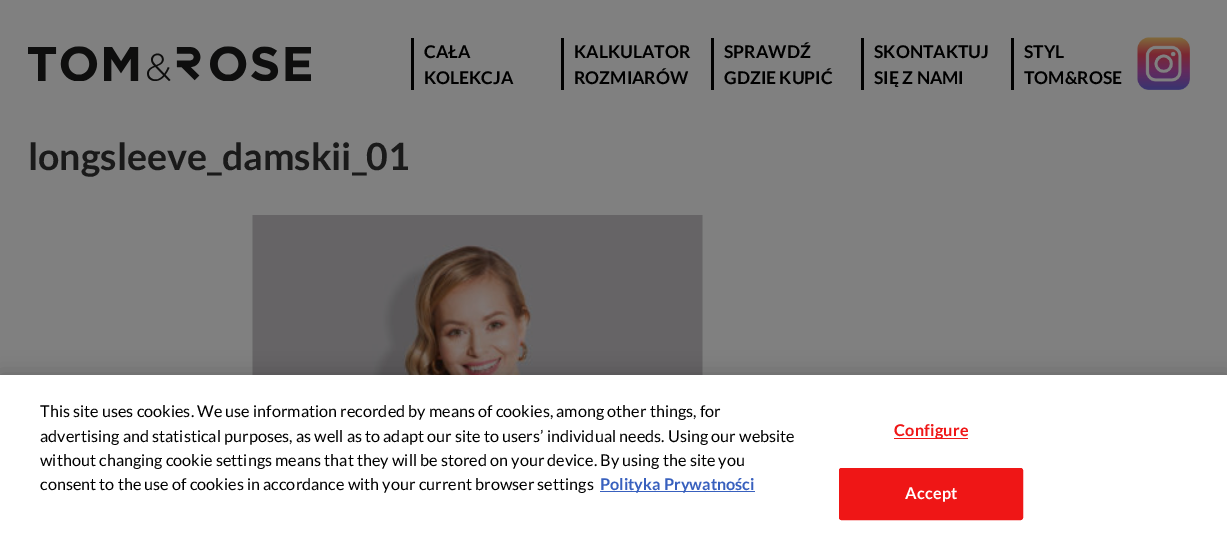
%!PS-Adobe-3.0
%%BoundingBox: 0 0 1227 544
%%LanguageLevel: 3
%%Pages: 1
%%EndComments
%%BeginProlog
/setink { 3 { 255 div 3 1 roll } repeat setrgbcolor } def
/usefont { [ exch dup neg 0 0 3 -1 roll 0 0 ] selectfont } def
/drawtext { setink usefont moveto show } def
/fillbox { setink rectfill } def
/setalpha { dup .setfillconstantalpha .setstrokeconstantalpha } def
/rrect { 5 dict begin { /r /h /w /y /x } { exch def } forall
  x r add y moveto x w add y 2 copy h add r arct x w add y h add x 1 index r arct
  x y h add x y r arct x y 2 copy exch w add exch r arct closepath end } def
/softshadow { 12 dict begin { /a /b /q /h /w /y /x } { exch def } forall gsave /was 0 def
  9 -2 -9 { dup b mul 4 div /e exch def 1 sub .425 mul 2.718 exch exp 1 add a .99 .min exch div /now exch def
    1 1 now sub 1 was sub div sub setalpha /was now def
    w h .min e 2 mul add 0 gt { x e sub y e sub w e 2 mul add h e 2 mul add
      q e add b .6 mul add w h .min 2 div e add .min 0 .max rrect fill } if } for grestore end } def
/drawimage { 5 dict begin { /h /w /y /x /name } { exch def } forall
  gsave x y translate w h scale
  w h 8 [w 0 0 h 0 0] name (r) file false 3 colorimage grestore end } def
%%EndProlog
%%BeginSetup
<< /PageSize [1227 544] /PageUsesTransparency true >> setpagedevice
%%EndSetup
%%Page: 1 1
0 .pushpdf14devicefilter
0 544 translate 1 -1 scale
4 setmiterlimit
0 0 1227 544 128 128 128 fillbox
(assets/img1.rgb) 28 46 283 35 drawimage
411 38 3 52 0 0 0 fillbox
(CAŁA) 424 58 /Lato-Bold 17.5 0 0 0 drawtext
(KOLEKCJA) 424 84 /Lato-Bold 17.5 0 0 0 drawtext
561 38 3 52 0 0 0 fillbox
(KALKULATOR) 574 58 /Lato-Bold 17.5 0 0 0 drawtext
(ROZMIARÓW) 574 84 /Lato-Bold 17.5 0 0 0 drawtext
711 38 3 52 0 0 0 fillbox
(SPRAWDŹ) 724 58 /Lato-Bold 17.5 0 0 0 drawtext
(GDZIE KUPIĆ) 724 84 /Lato-Bold 17.5 0 0 0 drawtext
861 38 3 52 0 0 0 fillbox
(SKONTAKTUJ) 874 58 /Lato-Bold 17.5 0 0 0 drawtext
(SIĘ Z NAMI) 874 84 /Lato-Bold 17.5 0 0 0 drawtext
1011 38 3 52 0 0 0 fillbox
(STYL) 1024 58 /Lato-Bold 17.5 0 0 0 drawtext
(TOM&ROSE) 1024 84 /Lato-Bold 17.5 0 0 0 drawtext
(assets/img2.rgb) 1137 37 53 53 drawimage
(longsleeve_damskii_01) 28 170 /Lato-Bold 37.5 26 26 26 drawtext
(assets/img3.rgb) 252 215 451 160 drawimage
0 0 0 setink
0 375 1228 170 0 11 0.2 softshadow
0 375 1227 169 255 255 255 fillbox
(This site uses cookies. We use information recorded by means of cookies, among other things, for) 40 417 /Lato-Regular 16.25 0 0 0 drawtext
(advertising and statistical purposes, as well as to adapt our site to users’ individual needs. Using our website) 40 442 /Lato-Regular 16.25 0 0 0 drawtext
(without changing cookie settings means that they will be stored on your device. By using the site you) 40 466 /Lato-Regular 16.25 0 0 0 drawtext
(consent to the use of cookies in accordance with your current browser settings) 40 490 /Lato-Regular 16.25 0 0 0 drawtext
600 491 155 1 56 96 190 fillbox
(Polityka Prywatności) 600 490 /Lato-Bold 16.25 56 96 190 drawtext
894 438 74 1 239 22 22 fillbox
894 436 moveto 0.25 0 (Configure) ashow
839.5 468.5 183 51 2 rrect gsave fill grestore
stroke
255 255 255 setink
905 499 moveto 0.25 0 (Accept) ashow
.poppdf14devicefilter showpage
%%EOF
